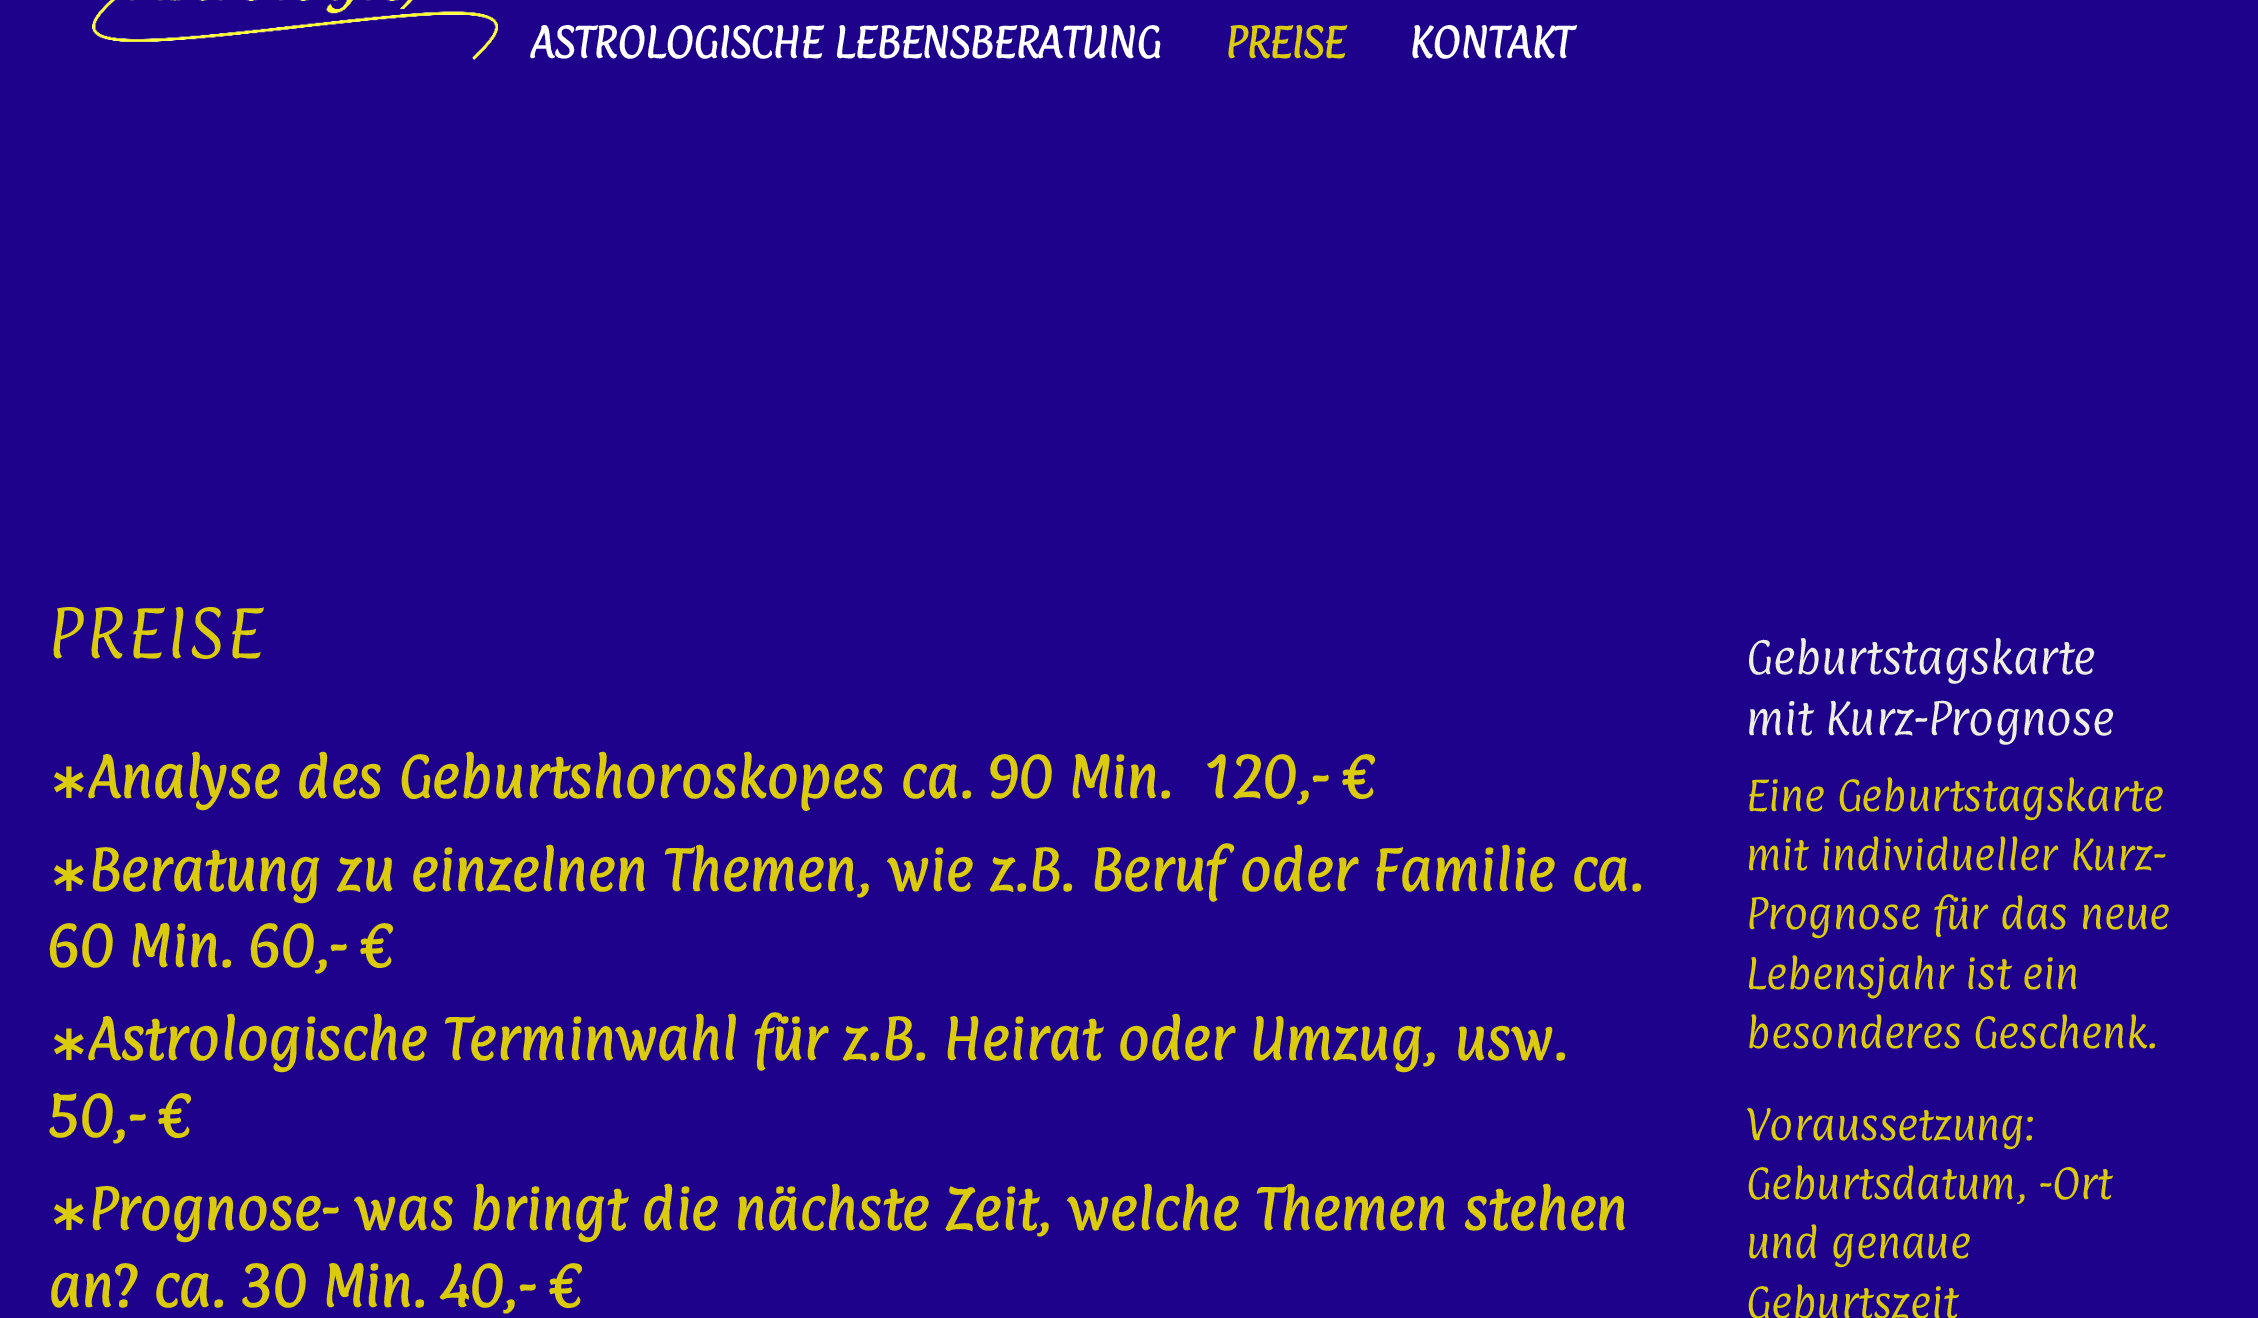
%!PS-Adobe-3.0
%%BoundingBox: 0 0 2258 1318
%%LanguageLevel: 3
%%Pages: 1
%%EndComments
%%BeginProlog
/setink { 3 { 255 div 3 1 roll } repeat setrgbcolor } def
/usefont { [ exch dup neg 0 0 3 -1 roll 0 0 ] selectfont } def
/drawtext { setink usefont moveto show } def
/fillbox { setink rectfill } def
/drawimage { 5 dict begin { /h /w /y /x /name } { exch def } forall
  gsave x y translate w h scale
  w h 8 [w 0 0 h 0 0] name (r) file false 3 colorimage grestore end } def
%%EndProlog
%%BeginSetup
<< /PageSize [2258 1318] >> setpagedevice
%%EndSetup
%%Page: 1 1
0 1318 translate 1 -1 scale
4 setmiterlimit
0 0 2258 1318 31 2 139 fillbox
(assets/img1.rgb) 92 0 406 60 drawimage
(ASTROLOGISCHE LEBENSBERATUNG) 530 58 /Paprika-Bold 36 255 255 255 drawtext
(PREISE) 1225 58 /Paprika-Bold 36 218 203 12 drawtext
(KONTAKT) 1409 58 /Paprika-Bold 36 255 255 255 drawtext
/Paprika-Regular 57.5 usefont
218 203 12 setink
48 658 moveto 4.5 0 (PREISE) ashow
(∗) 48 798 /DejaVuSans-Bold 48 218 203 12 drawtext
(Analyse des Geburtshoroskopes ca. 90 Min.  120,- €) 88 798 /Paprika-Bold 48 218 203 12 drawtext
(∗) 48 891 /DejaVuSans-Bold 48 218 203 12 drawtext
(Beratung zu einzelnen Themen, wie z.B. Beruf oder Familie ca.) 88 891 /Paprika-Bold 48 218 203 12 drawtext
(60 Min. 60,- €) 48 967 /Paprika-Bold 48 218 203 12 drawtext
(∗) 48 1060 /DejaVuSans-Bold 48 218 203 12 drawtext
(Astrologische Terminwahl für z.B. Heirat oder Umzug, usw.) 88 1060 /Paprika-Bold 48 218 203 12 drawtext
(50,- €) 48 1137 /Paprika-Bold 48 218 203 12 drawtext
(∗) 48 1230 /DejaVuSans-Bold 48 218 203 12 drawtext
(Prognose- was bringt die nächste Zeit, welche Themen stehen) 88 1230 /Paprika-Bold 48 218 203 12 drawtext
(an? ca. 30 Min. 40,- €) 48 1307 /Paprika-Bold 48 218 203 12 drawtext
(Geburtstagskarte) 1746 674 /Paprika-Regular 38.5 239 238 227 drawtext
(mit Kurz-Prognose) 1746 735 /Paprika-Regular 38.5 239 238 227 drawtext
(Eine Geburtstagskarte) 1746 811 /Paprika-Regular 36 218 203 12 drawtext
(mit individueller Kurz-) 1746 870 /Paprika-Regular 36 218 203 12 drawtext
(Prognose für das neue) 1746 929 /Paprika-Regular 36 218 203 12 drawtext
(Lebensjahr ist ein) 1746 989 /Paprika-Regular 36 218 203 12 drawtext
(besonderes Geschenk.) 1746 1048 /Paprika-Regular 36 218 203 12 drawtext
(Voraussetzung:) 1746 1140 /Paprika-Regular 36 218 203 12 drawtext
(Geburtsdatum, -Ort) 1746 1199 /Paprika-Regular 36 218 203 12 drawtext
(und genaue) 1746 1258 /Paprika-Regular 36 218 203 12 drawtext
(Geburtszeit) 1746 1318 /Paprika-Regular 36 218 203 12 drawtext
showpage
%%EOF
